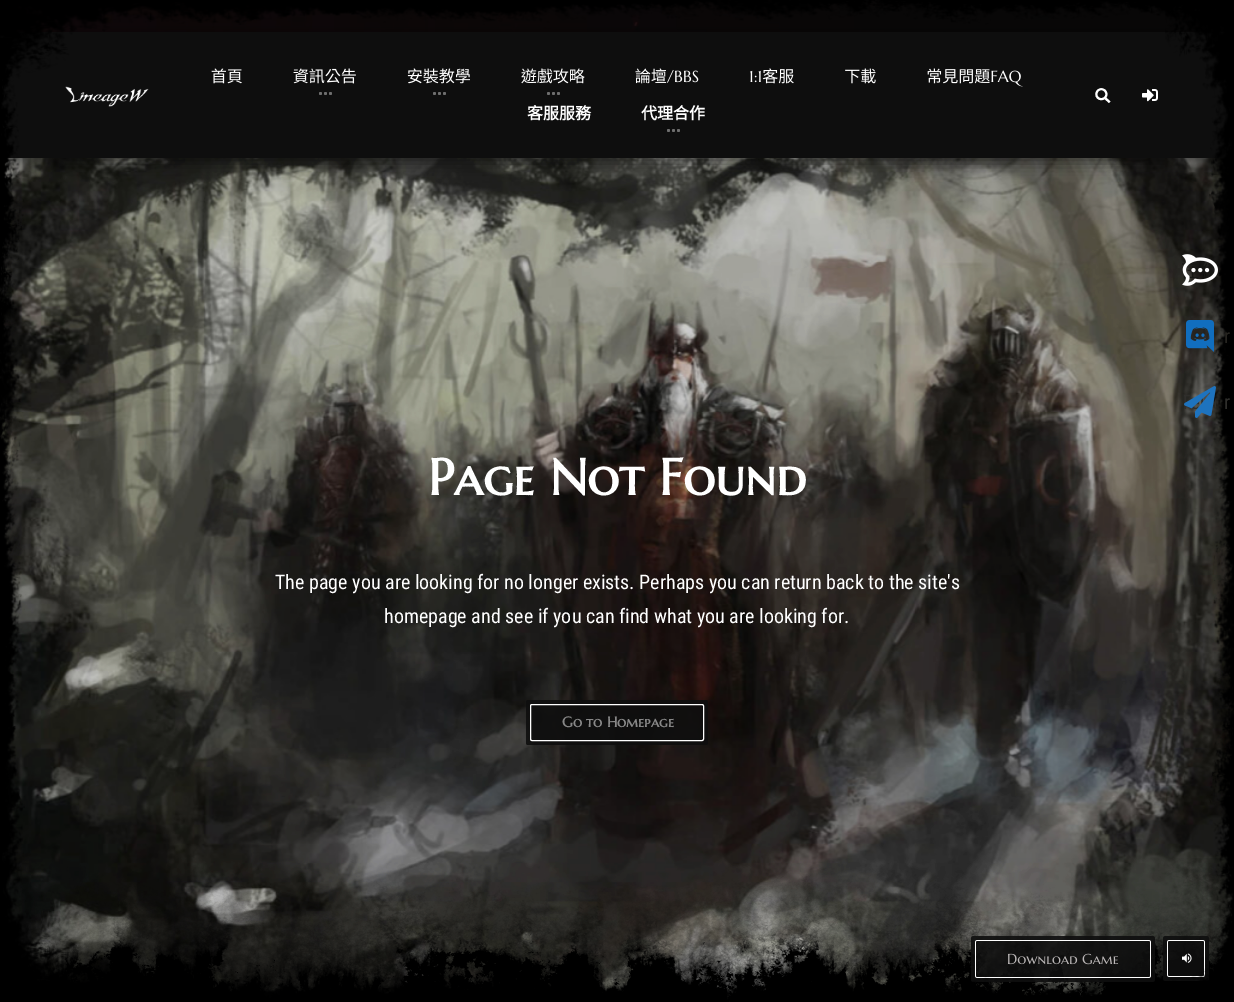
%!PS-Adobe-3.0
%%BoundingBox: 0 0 1234 1002
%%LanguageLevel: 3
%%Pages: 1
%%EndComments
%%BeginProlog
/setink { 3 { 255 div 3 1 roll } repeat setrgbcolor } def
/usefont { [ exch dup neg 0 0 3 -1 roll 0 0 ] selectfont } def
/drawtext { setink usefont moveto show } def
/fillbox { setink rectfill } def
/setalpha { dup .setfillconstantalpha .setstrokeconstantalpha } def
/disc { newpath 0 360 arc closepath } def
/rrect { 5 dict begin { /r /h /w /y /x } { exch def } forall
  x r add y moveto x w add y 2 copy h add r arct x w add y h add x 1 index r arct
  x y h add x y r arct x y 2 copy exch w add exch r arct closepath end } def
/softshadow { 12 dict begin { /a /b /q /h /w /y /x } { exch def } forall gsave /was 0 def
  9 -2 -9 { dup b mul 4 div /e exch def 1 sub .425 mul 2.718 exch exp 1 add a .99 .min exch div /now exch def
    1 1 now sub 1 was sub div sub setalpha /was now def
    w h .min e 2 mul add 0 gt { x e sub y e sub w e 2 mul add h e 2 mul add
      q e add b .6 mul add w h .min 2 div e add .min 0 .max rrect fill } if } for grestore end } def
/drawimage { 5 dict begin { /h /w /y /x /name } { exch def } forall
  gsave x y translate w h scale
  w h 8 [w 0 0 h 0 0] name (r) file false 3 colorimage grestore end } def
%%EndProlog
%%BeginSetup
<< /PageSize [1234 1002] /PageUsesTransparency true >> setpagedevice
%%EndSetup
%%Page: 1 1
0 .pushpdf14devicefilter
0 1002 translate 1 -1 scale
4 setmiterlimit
0 0 1234 1002 14 14 14 fillbox
(assets/img1.rgb) 0 0 1234 1002 drawimage
(assets/img11.rgb) 0 158 1234 844 drawimage
0 0 0 setink
0 37 1234 126 0 7.5 0.5 softshadow
0 32 1234 126 14 14 14 fillbox
(assets/img6.rgb) 65 86 84 21 drawimage
(首頁) 211 82 /NotoSansCJKTC-Bold 16 255 255 255 drawtext
(資訊公告) 293 82 /NotoSansCJKTC-Bold 16 255 255 255 drawtext
(安裝教學) 407 82 /NotoSansCJKTC-Bold 16 255 255 255 drawtext
(遊戲攻略) 521 82 /NotoSansCJKTC-Bold 16 255 255 255 drawtext
(論壇) 635 82 /NotoSansCJKTC-Bold 16 255 255 255 drawtext
(/BBS) 667 82 /MarcellusSC-Bold 16 255 255 255 drawtext
(1:1) 749 82 /MarcellusSC-Bold 16 255 255 255 drawtext
(客服) 762 82 /NotoSansCJKTC-Bold 16 255 255 255 drawtext
(下載) 844 82 /NotoSansCJKTC-Bold 16 255 255 255 drawtext
(常見問題) 926 82 /NotoSansCJKTC-Bold 16 255 255 255 drawtext
(FAQ) 990 82 /MarcellusSC-Bold 16 255 255 255 drawtext
2 setlinewidth
1098 90.5 moveto 1102.5 86 1109.5 93 1105 97.5 curveto 1100 102.5 1093 95.5 1098 90.5 curveto closepath stroke
(assets/img2.rgb) 0 0 1234 89 drawimage
(assets/img12.rgb) 1 858 1233 144 drawimage
0.9 setalpha
14 14 14 setink
1163 936 46 45 2 rrect fill
1 setalpha
(assets/img13.rgb) 1182 953 10 10 drawimage
255 255 255 setink
1 setlinewidth
1167.5 940.5 37 36 1.5 rrect stroke
(assets/img4.rgb) 1165 11 69 966 drawimage
0.9 setalpha
14 14 14 setink
971 936 184 46 2 rrect fill
1 setalpha
255 255 255 setink
975.5 940.5 175 37 1.5 rrect stroke
(Download Game) 1007 964 /MarcellusSC-Bold 14.5 189 185 185 drawtext
(assets/img5.rgb) 0 916 1209 86 drawimage
(assets/img3.rgb) 0 38 66 941 drawimage
110 110 110 setink
320.5 93.5 1.5 disc fill
330.5 93.5 1.5 disc fill
325.5 93.5 1.5 disc fill
434.5 93.5 1.5 disc fill
444.5 93.5 1.5 disc fill
439.5 93.5 1.5 disc fill
548.5 93.5 1.5 disc fill
558.5 93.5 1.5 disc fill
553.5 93.5 1.5 disc fill
(客服服務) 527 119 /NotoSansCJKTC-Bold 16 255 255 255 drawtext
(代理合作) 641 119 /NotoSansCJKTC-Bold 16 255 255 255 drawtext
110 110 110 setink
668.5 130.5 1.5 disc fill
678.5 130.5 1.5 disc fill
673.5 130.5 1.5 disc fill
255 255 255 setink
1104.5 99 moveto 1106 97.5 lineto 1110.5 101.5 lineto 1109 103 lineto closepath fill
(assets/img7.rgb) 1142 89 16 13 drawimage
(assets/img8.rgb) 1182 254 36 32 drawimage
(assets/img9.rgb) 1186 320 28 32 drawimage
(r) 1224 343 /RobotoCondensed-Regular 20 38 36 32 drawtext
(assets/img10.rgb) 1184 386 32 32 drawimage
(r) 1224 409 /RobotoCondensed-Regular 20 47 46 43 drawtext
(Page Not Found) 428 495 /MarcellusSC-Bold 51 255 255 255 drawtext
(The page you are looking for no longer exists. Perhaps you can return back to the site's) 275 589 /RobotoCondensed-Regular 20 255 255 255 drawtext
(homepage and see if you can find what you are looking for.) 384 623 /RobotoCondensed-Regular 20 255 255 255 drawtext
0.9 setalpha
14 14 14 setink
526 700 182 45 2 rrect fill
1 setalpha
255 255 255 setink
530.5 704.5 173 36 1.5 rrect stroke
(Go to Homepage) 562 727 /MarcellusSC-Bold 14.5 136 136 136 drawtext
.poppdf14devicefilter showpage
%%EOF
